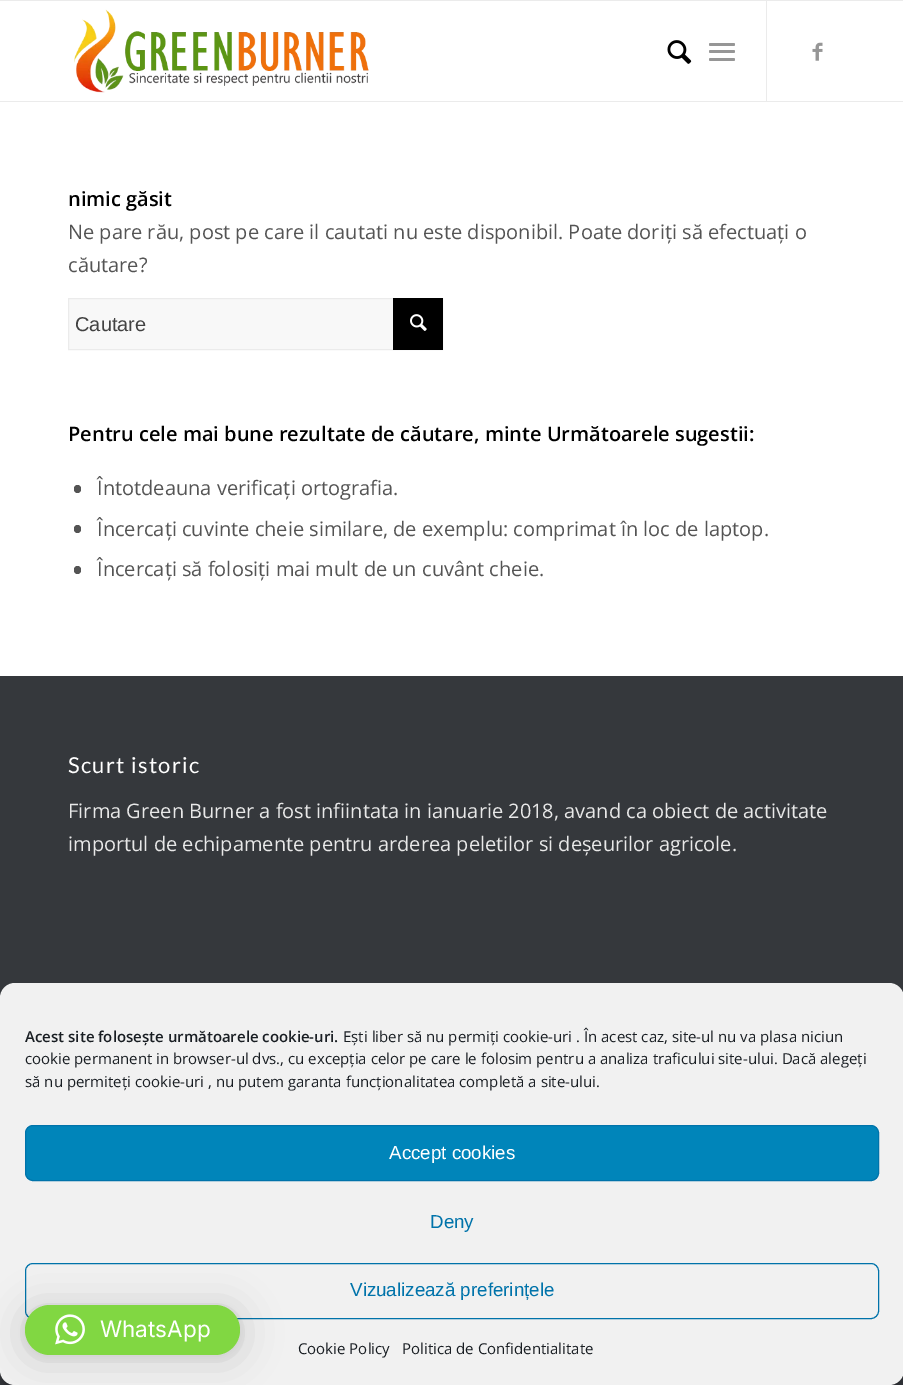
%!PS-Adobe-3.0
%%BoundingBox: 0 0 903 1385
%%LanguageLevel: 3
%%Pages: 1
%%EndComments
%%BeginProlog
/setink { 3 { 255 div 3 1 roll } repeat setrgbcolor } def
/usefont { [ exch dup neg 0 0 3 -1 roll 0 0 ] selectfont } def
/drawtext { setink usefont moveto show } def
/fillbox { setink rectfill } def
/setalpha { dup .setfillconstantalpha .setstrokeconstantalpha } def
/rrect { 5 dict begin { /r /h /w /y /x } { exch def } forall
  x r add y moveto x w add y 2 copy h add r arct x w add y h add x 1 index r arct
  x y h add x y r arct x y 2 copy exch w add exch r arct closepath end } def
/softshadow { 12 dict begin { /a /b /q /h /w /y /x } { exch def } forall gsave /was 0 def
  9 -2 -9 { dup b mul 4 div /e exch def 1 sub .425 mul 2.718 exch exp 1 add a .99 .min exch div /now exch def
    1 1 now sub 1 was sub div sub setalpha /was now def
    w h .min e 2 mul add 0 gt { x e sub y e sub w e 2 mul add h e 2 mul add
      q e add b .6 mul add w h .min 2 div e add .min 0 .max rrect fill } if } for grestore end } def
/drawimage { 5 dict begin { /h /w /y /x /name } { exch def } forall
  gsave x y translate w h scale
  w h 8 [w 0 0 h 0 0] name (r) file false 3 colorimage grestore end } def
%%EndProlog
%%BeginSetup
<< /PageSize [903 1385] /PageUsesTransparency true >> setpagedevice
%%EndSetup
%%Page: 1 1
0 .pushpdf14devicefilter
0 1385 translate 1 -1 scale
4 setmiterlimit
0 0 903 1385 255 255 255 fillbox
0 0 903 1 235 235 235 fillbox
0 101 903 1 235 235 235 fillbox
(assets/img1.rgb) 74 9 295 84 drawimage
766 1 1 100 235 235 235 fillbox
(assets/img2.rgb) 667 40 25 24 drawimage
150 150 150 setink
709 50 26 3 1.5 rrect fill
709 43 26 3 1.5 rrect fill
709 58 26 3 1.5 rrect fill
(assets/img3.rgb) 812 42 11 19 drawimage
(nimic găsit) 68 206 /OpenSans-SemiBold 20 0 0 0 drawtext
(Ne pare rău, post pe care il cautati nu este disponibil. Poate doriți să efectuați o) 68 239 /OpenSans-Regular 20 84 84 84 drawtext
(căutare?) 68 272 /OpenSans-Regular 20 84 84 84 drawtext
69 299 324 50 248 248 248 fillbox
235 235 235 setink
68.5 298.5 374 51 rectstroke
(Cautare) 75 331 /LiberationSans-Regular 20 66 66 66 drawtext
393 298 50 52 0 0 0 fillbox
(assets/img4.rgb) 410 314 17 17 drawimage
(Pentru cele mai bune rezultate de căutare, minte Următoarele sugestii:) 68 441 /OpenSans-SemiBold 20 0 0 0 drawtext
84 84 84 setink
74 485 7 8 3.5 rrect fill
(Întotdeauna verificați ortografia.) 97 495 /OpenSans-Regular 20 84 84 84 drawtext
74 525 7 8 3.5 rrect fill
(Încercați cuvinte cheie similare, de exemplu: comprimat în loc de laptop.) 97 536 /OpenSans-Regular 20 84 84 84 drawtext
74 566 7 8 3.5 rrect fill
(Încercați să folosiți mai mult de un cuvânt cheie.) 97 576 /OpenSans-Regular 20 84 84 84 drawtext
0 676 903 709 53 56 60 fillbox
/Lato-Regular 22 usefont
255 255 255 setink
68 773 moveto 1.25 0 (Scurt istoric) ashow
(Firma Green Burner a fost infiintata in ianuarie 2018, avand ca obiect de activitate) 68 818 /OpenSans-Regular 20 232 232 232 drawtext
(importul de echipamente pentru arderea peletilor si deșeurilor agricole.) 68 851 /OpenSans-Regular 20 232 232 232 drawtext
0 0 0 setink
0 990 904 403 15 4 0.23 softshadow
241 241 241 setink
0 983 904 402 15 rrect fill
(Acest site folosește următoarele cookie-uri.) 25 1042 /OpenSans-SemiBold 15 25 30 35 drawtext
(Ești liber să nu permiți cookie-uri . În acest caz, site-ul nu va plasa niciun) 343 1042 /OpenSans-Regular 15 25 30 35 drawtext
(cookie permanent in browser-ul dvs., cu excepția celor pe care le folosim pentru a analiza traficului site-ului. Dacă alegeți) 25 1064 /OpenSans-Regular 15 25 30 35 drawtext
(să nu permiteți cookie-uri , nu putem garanta funcționalitatea completă a site-ului.) 25 1087 /OpenSans-Regular 15 25 30 35 drawtext
0 133 186 setink
25.5 1125.5 853 55 7.5 rrect gsave fill grestore
0 115 170 setink
stroke
(Accept cookies) 389 1159 /LiberationSans-Regular 18.75 255 255 255 drawtext
(Deny) 430 1228 /LiberationSans-Regular 18.75 0 115 170 drawtext
25.5 1263.5 853 55 7.5 rrect stroke
(Vizualizează preferințele) 350 1296 /LiberationSans-Regular 18.75 0 115 170 drawtext
(Cookie Policy) 298 1354 /OpenSans-Regular 15 25 30 35 drawtext
(Politica de Confidentialitate) 402 1354 /OpenSans-Regular 15 25 30 35 drawtext
0 0 0 setink
25 1308 215 50 25 20 0.16 softshadow
25 1306 215 50 25 4 0.06 softshadow
129 215 66 setink
25 1305 215 50 25 rrect fill
(assets/img5.rgb) 55 1314 30 31 drawimage
(WhatsApp) 100 1337 /Inter-Regular 22.5 255 255 255 drawtext
.poppdf14devicefilter showpage
%%EOF
